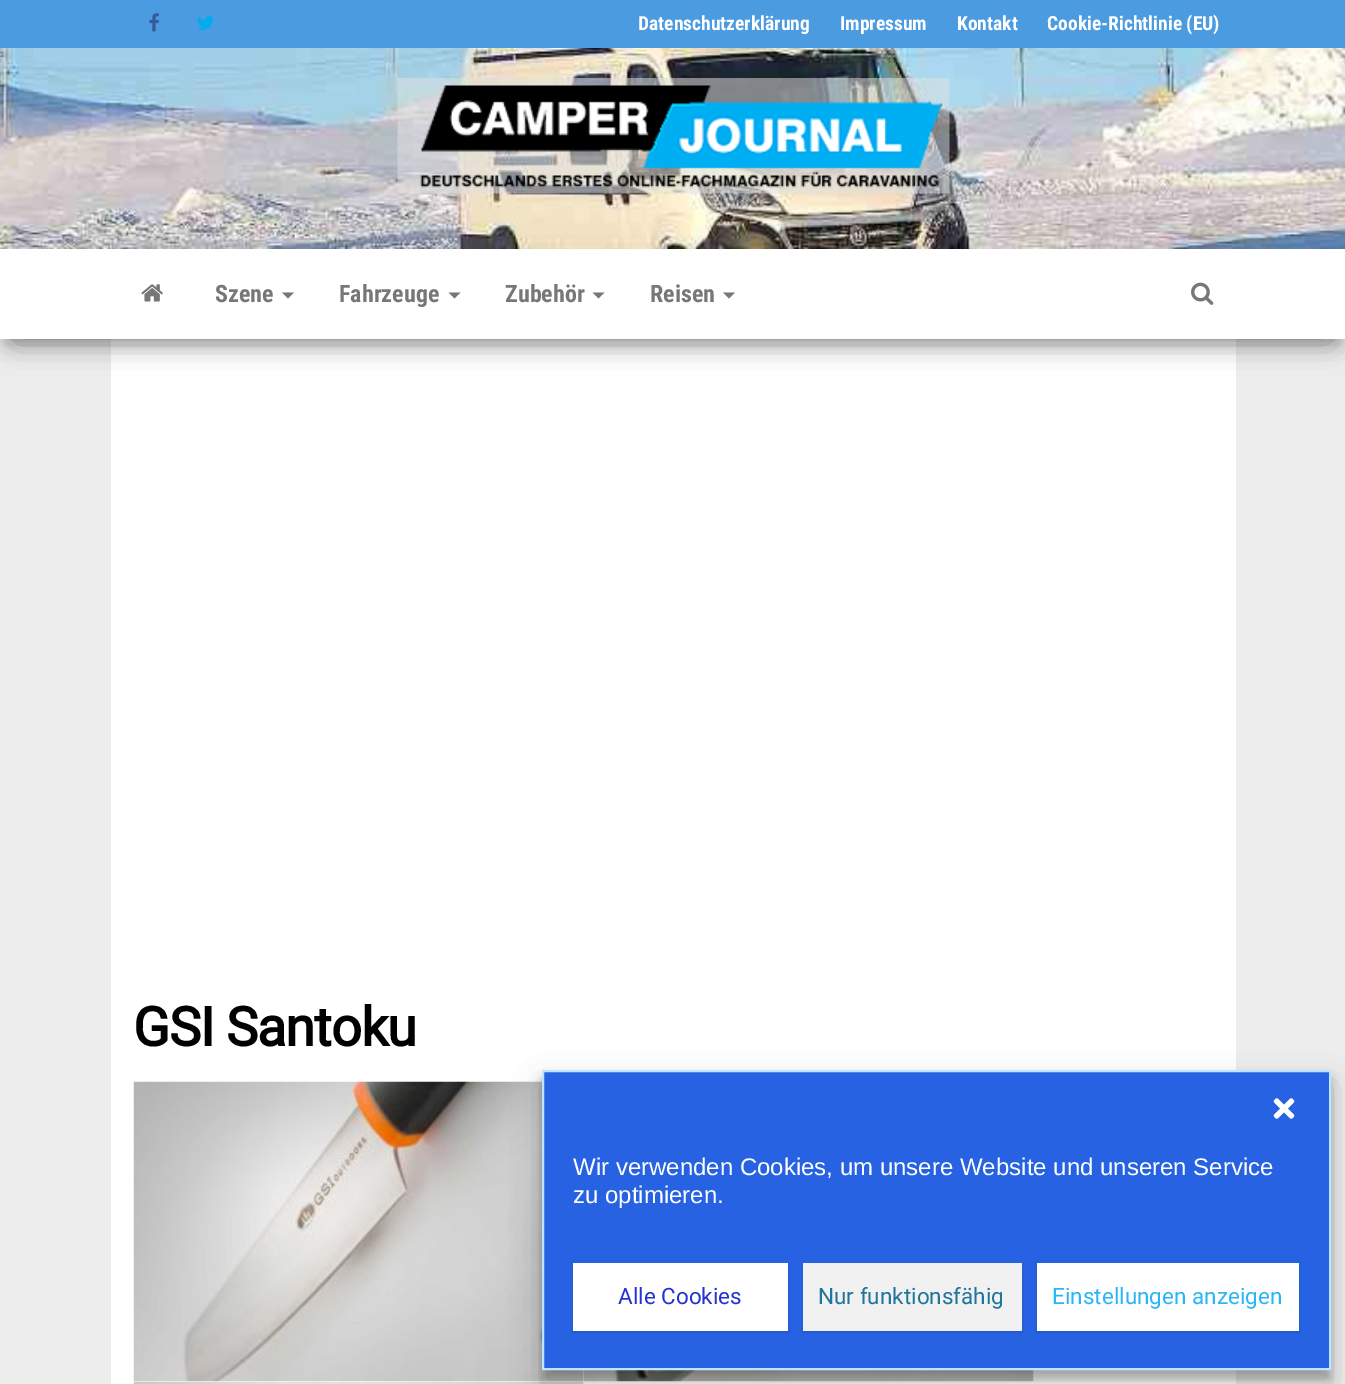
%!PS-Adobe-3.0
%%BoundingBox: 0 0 1345 1384
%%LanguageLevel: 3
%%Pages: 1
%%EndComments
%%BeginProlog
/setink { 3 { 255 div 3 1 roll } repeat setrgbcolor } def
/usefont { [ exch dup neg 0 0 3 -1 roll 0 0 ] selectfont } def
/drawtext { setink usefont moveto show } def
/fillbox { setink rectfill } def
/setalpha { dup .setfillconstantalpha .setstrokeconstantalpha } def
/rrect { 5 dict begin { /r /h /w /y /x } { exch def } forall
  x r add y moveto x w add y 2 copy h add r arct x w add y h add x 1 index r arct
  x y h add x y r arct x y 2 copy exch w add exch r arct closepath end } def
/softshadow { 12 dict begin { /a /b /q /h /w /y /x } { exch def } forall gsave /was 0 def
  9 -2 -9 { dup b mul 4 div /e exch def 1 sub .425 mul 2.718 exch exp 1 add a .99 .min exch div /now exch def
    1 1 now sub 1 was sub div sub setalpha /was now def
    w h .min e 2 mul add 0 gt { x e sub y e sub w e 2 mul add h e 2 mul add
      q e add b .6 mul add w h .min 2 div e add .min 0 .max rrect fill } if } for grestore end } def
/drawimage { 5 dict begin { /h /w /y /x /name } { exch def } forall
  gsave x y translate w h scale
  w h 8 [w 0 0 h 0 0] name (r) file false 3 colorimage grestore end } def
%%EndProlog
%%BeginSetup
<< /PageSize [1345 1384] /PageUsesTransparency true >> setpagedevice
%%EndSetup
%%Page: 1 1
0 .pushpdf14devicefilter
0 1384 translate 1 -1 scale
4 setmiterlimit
0 0 1345 1384 237 237 237 fillbox
0 0 1345 48 75 155 225 fillbox
(assets/img1.rgb) 149 13 10 19 drawimage
(assets/img2.rgb) 197 16 17 14 drawimage
(Datenschutzerklärung) 638 30 /RobotoCondensed-Bold 19.5 255 255 255 drawtext
(Impressum) 840 30 /RobotoCondensed-Bold 19.5 255 255 255 drawtext
(Kontakt) 957 30 /RobotoCondensed-Bold 19.5 255 255 255 drawtext
(Cookie-Richtlinie \(EU\)) 1047 30 /RobotoCondensed-Bold 19.5 255 255 255 drawtext
(assets/img3.rgb) 0 48 1345 201 drawimage
(assets/img4.rgb) 397 78 553 116 drawimage
111 339 1125 1045 255 255 255 fillbox
0 0 0 setink
8 269 1330 75 0 7.5 0.2 softshadow
0 254 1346 90 0 15 0.12 softshadow
18 282 1310 54 0 15 0.42 softshadow
0 249 1345 90 255 255 255 fillbox
(assets/img5.rgb) 141 284 22 18 drawimage
(Szene) 215 302 /RobotoCondensed-Bold 24 119 119 119 drawtext
282 292.5 moveto 294 292.5 lineto 288 298.5 lineto closepath fill
(Fahrzeuge) 339 302 /RobotoCondensed-Bold 24 119 119 119 drawtext
448.5 292.5 moveto 460.5 292.5 lineto 454.5 298.5 lineto closepath fill
(Zubehör) 505 302 /RobotoCondensed-Bold 24 119 119 119 drawtext
592.5 292.5 moveto 604.5 292.5 lineto 598.5 298.5 lineto closepath fill
(Reisen) 650 302 /RobotoCondensed-Bold 24 119 119 119 drawtext
723 292.5 moveto 735 292.5 lineto 729 298.5 lineto closepath fill
(assets/img6.rgb) 1191 282 23 23 drawimage
/Roboto-Bold 54 usefont
0 0 0 setink
133 1046 moveto -1 0 (GSI Santoku) ashow
(assets/img7.rgb) 133 1081 451 301 drawimage
(assets/img8.rgb) 583 1370 451 12 drawimage
(assets/img9.rgb) 133 1381 451 3 drawimage
0.25 setalpha
616 1381 151 1 255 255 255 fillbox
1 setalpha
0 0 0 setink
542 1079 789 300 0 4.5 0.23 softshadow
542 1085 789 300 0 15 0.19 softshadow
38 98 226 setink
543 1071 moveto 1330 1071 lineto 1330 1369 lineto 543 1369 lineto closepath gsave fill grestore
188 229 255 setink
2 setlinewidth
stroke
(assets/img10.rgb) 1273 1098 22 21 drawimage
(Wir verwenden Cookies, um unsere Website und unseren Service) 573 1175 /LiberationSans-Regular 24 255 255 255 drawtext
(zu optimieren.) 573 1203 /LiberationSans-Regular 24 255 255 255 drawtext
0 0 0 setink
573 1265 215 67 0 1.5 0.15 softshadow
573 1263 215 68 255 255 255 fillbox
(Alle Cookies) 618 1304 /Roboto-Regular 22.5 35 50 209 drawtext
0 0 0 setink
803 1265 219 67 0 1.5 0.15 softshadow
803 1263 219 68 241 241 241 fillbox
(Nur funktionsfähig) 818 1304 /Roboto-Regular 22.5 33 117 155 drawtext
0 0 0 setink
1037 1265 262 67 0 1.5 0.15 softshadow
1037 1263 262 68 255 255 255 fillbox
(Einstellungen anzeigen) 1052 1304 /Roboto-Regular 22.5 41 182 246 drawtext
.poppdf14devicefilter showpage
%%EOF
